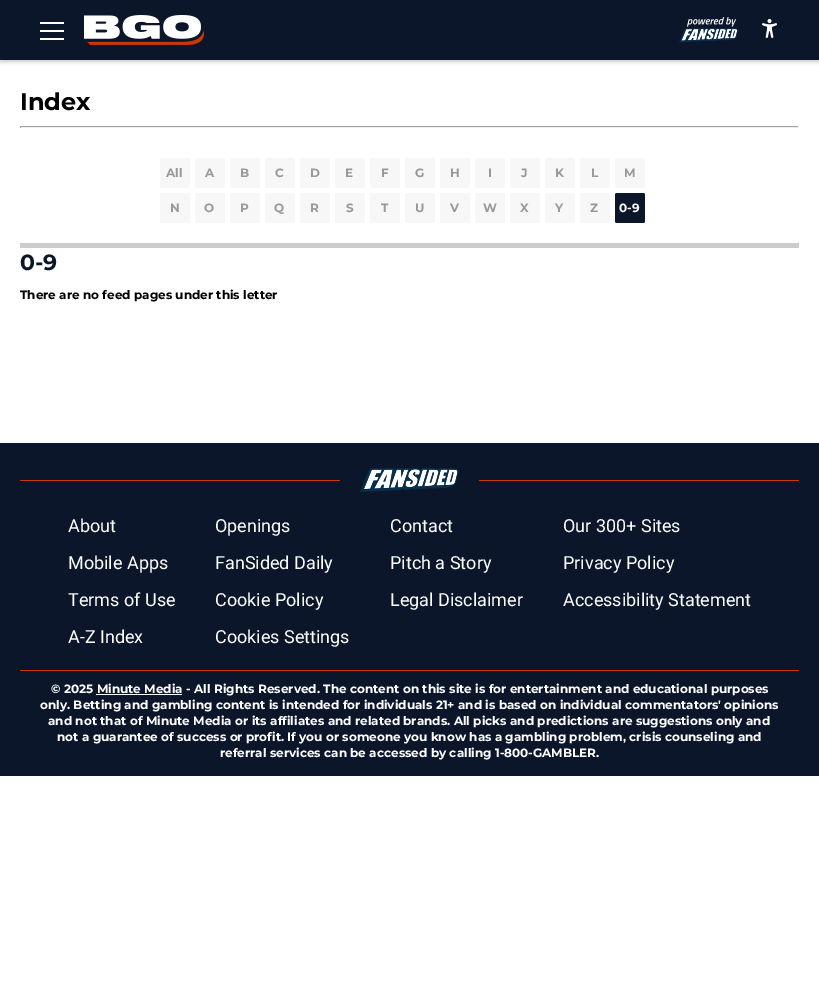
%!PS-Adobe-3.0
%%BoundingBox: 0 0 819 997
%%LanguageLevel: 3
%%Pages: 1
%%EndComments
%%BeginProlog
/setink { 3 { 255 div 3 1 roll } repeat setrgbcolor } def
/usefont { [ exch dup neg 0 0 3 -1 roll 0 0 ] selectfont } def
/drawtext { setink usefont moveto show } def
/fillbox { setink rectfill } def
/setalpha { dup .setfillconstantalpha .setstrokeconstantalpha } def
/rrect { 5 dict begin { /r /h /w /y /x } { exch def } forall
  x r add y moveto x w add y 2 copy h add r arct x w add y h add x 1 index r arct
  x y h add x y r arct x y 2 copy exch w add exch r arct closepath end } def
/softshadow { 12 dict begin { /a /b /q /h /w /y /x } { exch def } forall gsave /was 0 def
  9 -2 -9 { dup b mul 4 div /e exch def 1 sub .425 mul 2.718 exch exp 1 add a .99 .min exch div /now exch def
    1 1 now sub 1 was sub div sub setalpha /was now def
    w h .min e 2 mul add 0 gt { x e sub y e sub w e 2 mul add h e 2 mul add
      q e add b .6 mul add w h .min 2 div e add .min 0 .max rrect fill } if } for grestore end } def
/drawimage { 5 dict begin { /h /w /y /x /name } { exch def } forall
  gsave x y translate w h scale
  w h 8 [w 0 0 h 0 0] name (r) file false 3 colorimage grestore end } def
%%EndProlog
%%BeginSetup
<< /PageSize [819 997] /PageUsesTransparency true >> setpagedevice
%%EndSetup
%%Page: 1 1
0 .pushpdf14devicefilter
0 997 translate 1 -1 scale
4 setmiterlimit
0 0 819 997 255 255 255 fillbox
0 0 0 setink
0 2 819 60 0 2 0.2 softshadow
0 0 819 60 11 22 42 fillbox
40 22 24 2 255 255 255 fillbox
40 30 24 2 255 255 255 fillbox
40 38 24 2 255 255 255 fillbox
(assets/img1.rgb) 84 15 120 30 drawimage
(assets/img2.rgb) 679 17 59 26 drawimage
(assets/img3.rgb) 762 18 15 20 drawimage
(Index) 20 110 /Montserrat-Bold 24 0 0 0 drawtext
20 126 779 1 159 159 159 fillbox
798 126 1 2 238 238 238 fillbox
20 127 779 1 238 238 238 fillbox
20 126 1 2 159 159 159 fillbox
247 247 247 setink
160 158 30 30 2 rrect fill
(All) 166 177 /Montserrat-Bold 12 153 153 153 drawtext
247 247 247 setink
195 158 30 30 2 rrect fill
(A) 205 177 /Montserrat-Bold 12 153 153 153 drawtext
247 247 247 setink
230 158 30 30 2 rrect fill
(B) 240 177 /Montserrat-Bold 12 153 153 153 drawtext
247 247 247 setink
265 158 30 30 2 rrect fill
(C) 275 177 /Montserrat-Bold 12 153 153 153 drawtext
247 247 247 setink
300 158 30 30 2 rrect fill
(D) 310 177 /Montserrat-Bold 12 153 153 153 drawtext
247 247 247 setink
335 158 30 30 2 rrect fill
(E) 345 177 /Montserrat-Bold 12 153 153 153 drawtext
247 247 247 setink
370 158 30 30 2 rrect fill
(F) 381 177 /Montserrat-Bold 12 153 153 153 drawtext
247 247 247 setink
405 158 30 30 2 rrect fill
(G) 415 177 /Montserrat-Bold 12 153 153 153 drawtext
247 247 247 setink
440 158 30 30 2 rrect fill
(H) 450 177 /Montserrat-Bold 12 153 153 153 drawtext
247 247 247 setink
475 158 30 30 2 rrect fill
(I) 488 177 /Montserrat-Bold 12 153 153 153 drawtext
247 247 247 setink
510 158 30 30 2 rrect fill
(J) 521 177 /Montserrat-Bold 12 153 153 153 drawtext
247 247 247 setink
545 158 30 30 2 rrect fill
(K) 555 177 /Montserrat-Bold 12 153 153 153 drawtext
247 247 247 setink
580 158 30 30 2 rrect fill
(L) 591 177 /Montserrat-Bold 12 153 153 153 drawtext
247 247 247 setink
615 158 30 30 2 rrect fill
(M) 624 177 /Montserrat-Bold 12 153 153 153 drawtext
247 247 247 setink
160 193 30 30 2 rrect fill
(N) 170 212 /Montserrat-Bold 12 153 153 153 drawtext
247 247 247 setink
195 193 30 30 2 rrect fill
(O) 204 212 /Montserrat-Bold 12 153 153 153 drawtext
247 247 247 setink
230 193 30 30 2 rrect fill
(P) 240 212 /Montserrat-Bold 12 153 153 153 drawtext
247 247 247 setink
265 193 30 30 2 rrect fill
(Q) 274 212 /Montserrat-Bold 12 153 153 153 drawtext
247 247 247 setink
300 193 30 30 2 rrect fill
(R) 310 212 /Montserrat-Bold 12 153 153 153 drawtext
247 247 247 setink
335 193 30 30 2 rrect fill
(S) 346 212 /Montserrat-Bold 12 153 153 153 drawtext
247 247 247 setink
370 193 30 30 2 rrect fill
(T) 381 212 /Montserrat-Bold 12 153 153 153 drawtext
247 247 247 setink
405 193 30 30 2 rrect fill
(U) 415 212 /Montserrat-Bold 12 153 153 153 drawtext
247 247 247 setink
440 193 30 30 2 rrect fill
(V) 450 212 /Montserrat-Bold 12 153 153 153 drawtext
247 247 247 setink
475 193 30 30 2 rrect fill
(W) 483 212 /Montserrat-Bold 12 153 153 153 drawtext
247 247 247 setink
510 193 30 30 2 rrect fill
(X) 520 212 /Montserrat-Bold 12 153 153 153 drawtext
247 247 247 setink
545 193 30 30 2 rrect fill
(Y) 555 212 /Montserrat-Bold 12 153 153 153 drawtext
247 247 247 setink
580 193 30 30 2 rrect fill
(Z) 590 212 /Montserrat-Bold 12 153 153 153 drawtext
11 22 42 setink
615 193 30 30 2 rrect fill
(0-9) 619 212 /Montserrat-Bold 12 247 247 247 drawtext
20 243 779 5 204 204 204 fillbox
(0-9) 20 270 /Montserrat-Bold 22 11 22 42 drawtext
(There are no feed pages under this letter) 20 299 /Montserrat-Bold 12 0 0 0 drawtext
0 443 819 333 11 22 42 fillbox
20 480 320 1 200 56 3 fillbox
(assets/img4.rgb) 360 468 99 24 drawimage
479 480 320 1 200 56 3 fillbox
(About) 68 532 /Roboto-Regular 18 255 255 255 drawtext
(Openings) 215 532 /Roboto-Regular 18 255 255 255 drawtext
(Contact) 390 532 /Roboto-Regular 18 255 255 255 drawtext
(Our 300+ Sites) 563 532 /Roboto-Regular 18 255 255 255 drawtext
(Mobile Apps) 68 569 /Roboto-Regular 18 255 255 255 drawtext
(FanSided Daily) 215 569 /Roboto-Regular 18 255 255 255 drawtext
(Pitch a Story) 390 569 /Roboto-Regular 18 255 255 255 drawtext
(Privacy Policy) 563 569 /Roboto-Regular 18 255 255 255 drawtext
(Terms of Use) 68 606 /Roboto-Regular 18 255 255 255 drawtext
(Cookie Policy) 215 606 /Roboto-Regular 18 255 255 255 drawtext
(Legal Disclaimer) 390 606 /Roboto-Regular 18 255 255 255 drawtext
(Accessibility Statement) 563 606 /Roboto-Regular 18 255 255 255 drawtext
(A-Z Index) 68 643 /Roboto-Regular 18 255 255 255 drawtext
(Cookies Settings) 215 643 /Roboto-Regular 18 255 255 255 drawtext
20 670 779 1 200 56 3 fillbox
(© 2025 Minute Media - All Rights Reserved. The content on this site is for entertainment and educational purposes) 51 693 /Montserrat-Bold 12 255 255 255 drawtext
96 694 86 1 255 255 255 fillbox
(only. Betting and gambling content is intended for individuals 21+ and is based on individual commentators' opinions) 40 709 /Montserrat-Bold 12 255 255 255 drawtext
(and not that of Minute Media or its affiliates and related brands. All picks and predictions are suggestions only and) 48 725 /Montserrat-Bold 12 255 255 255 drawtext
(not a guarantee of success or profit. If you or someone you know has a gambling problem, crisis counseling and) 57 741 /Montserrat-Bold 12 255 255 255 drawtext
(referral services can be accessed by calling 1-800-GAMBLER.) 220 757 /Montserrat-Bold 12 255 255 255 drawtext
.poppdf14devicefilter showpage
%%EOF
